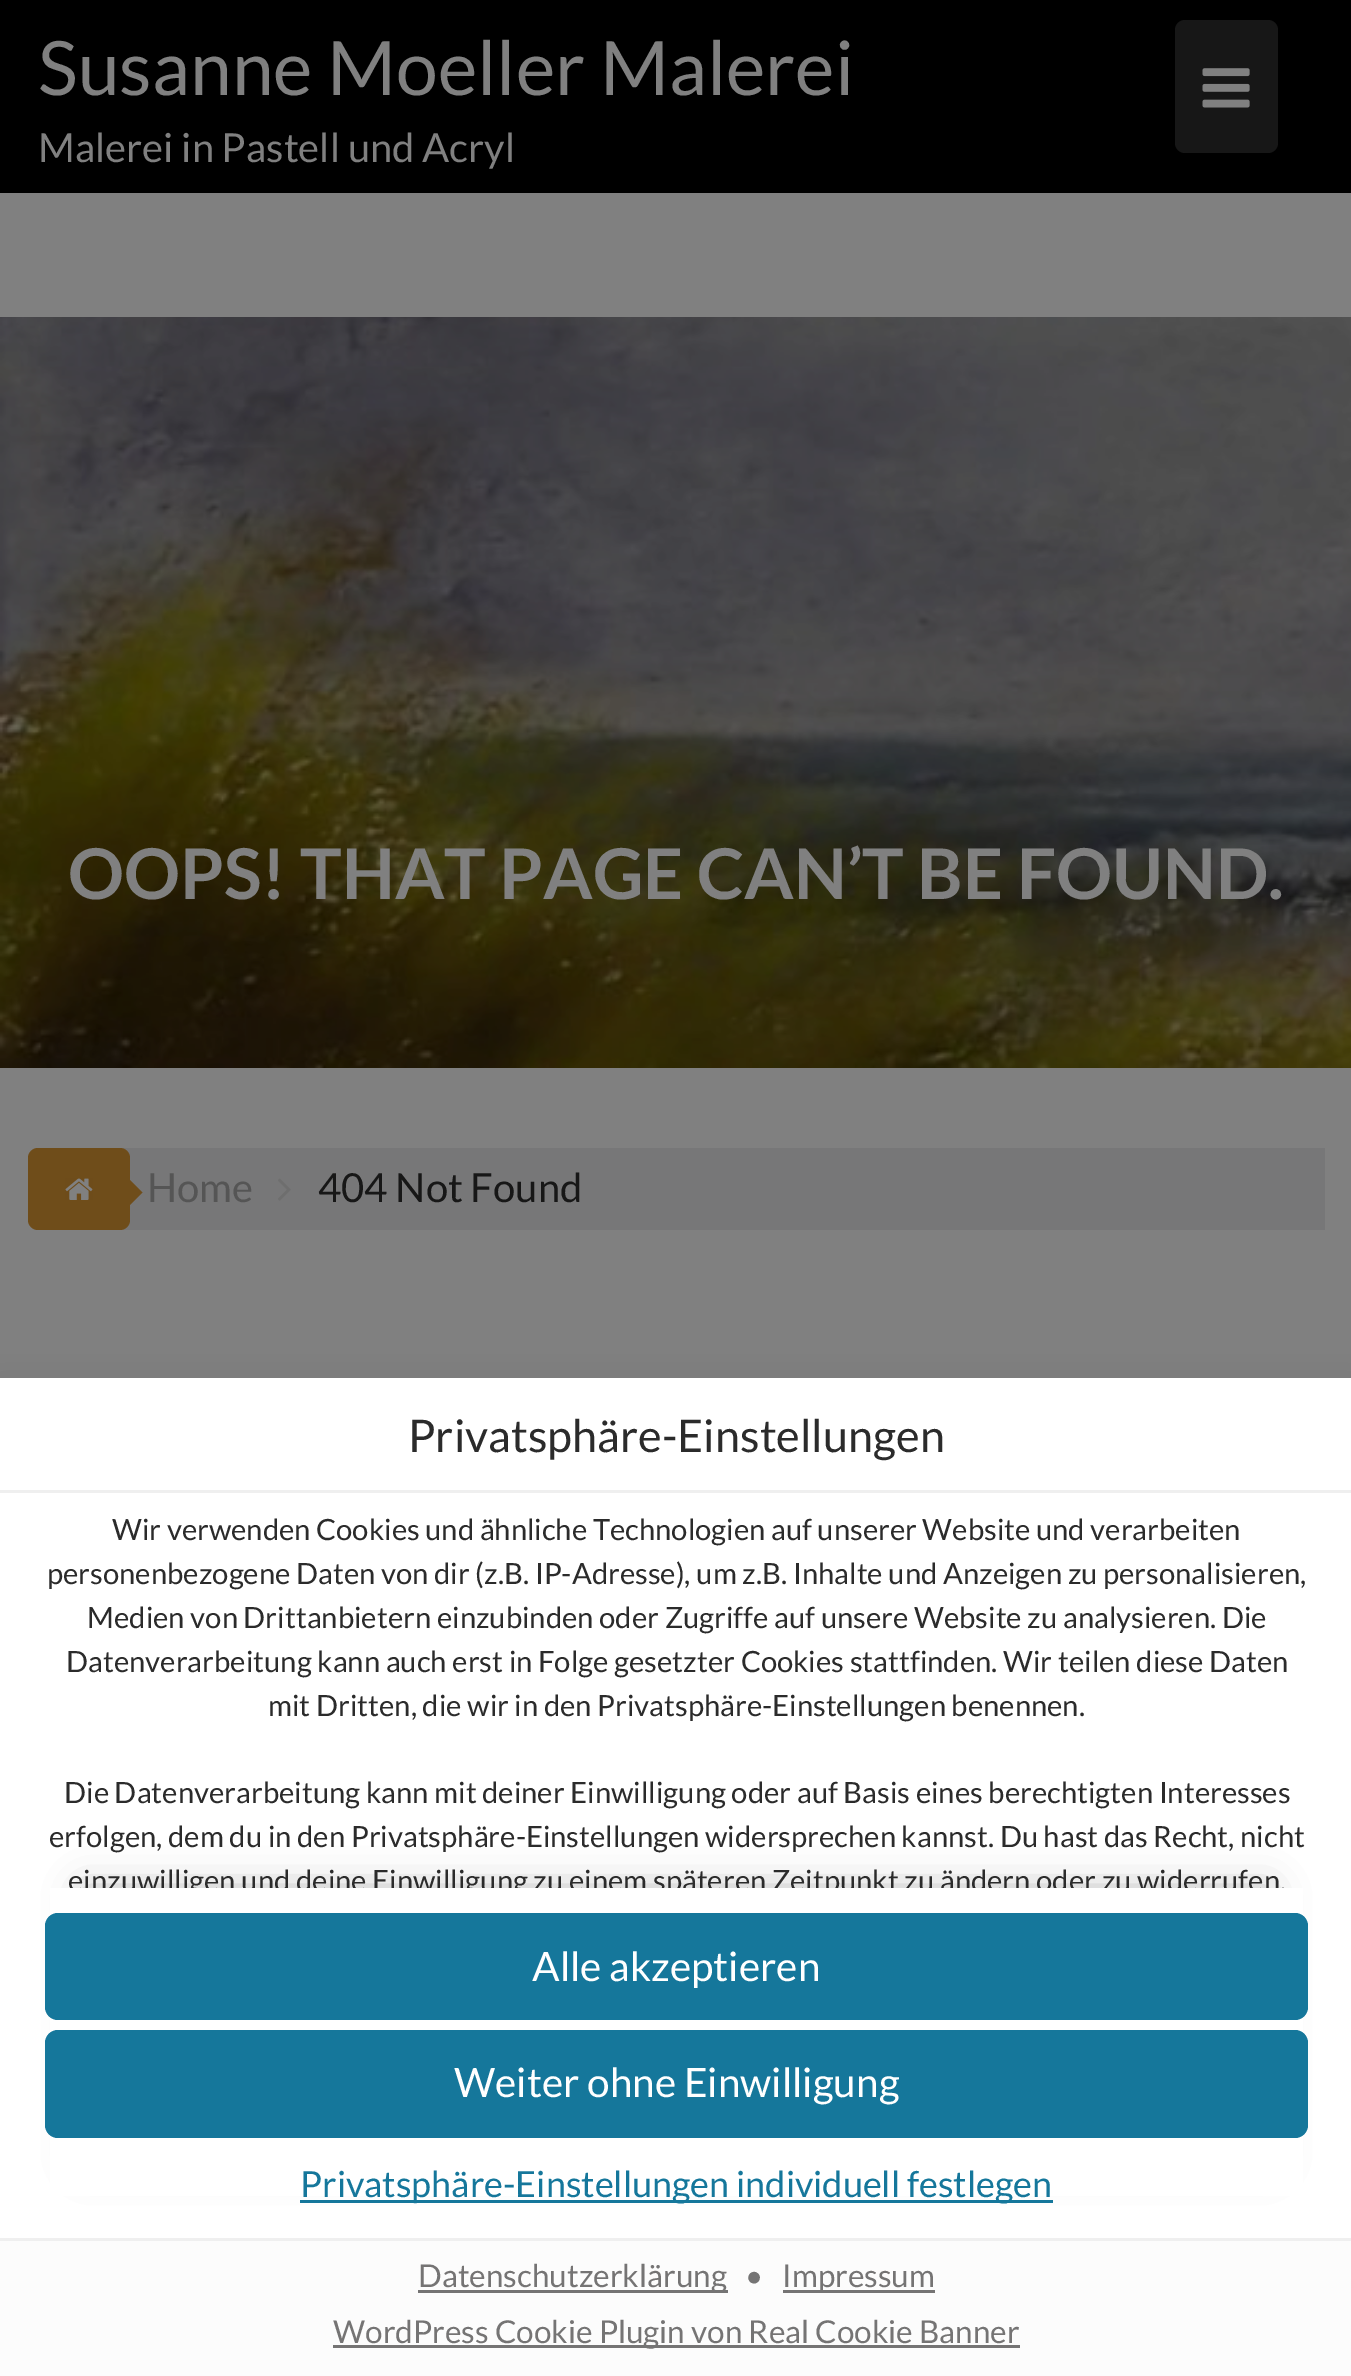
%!PS-Adobe-3.0
%%BoundingBox: 0 0 1351 2376
%%LanguageLevel: 3
%%Pages: 1
%%EndComments
%%BeginProlog
/setink { 3 { 255 div 3 1 roll } repeat setrgbcolor } def
/usefont { [ exch dup neg 0 0 3 -1 roll 0 0 ] selectfont } def
/drawtext { setink usefont moveto show } def
/fillbox { setink rectfill } def
/setalpha { dup .setfillconstantalpha .setstrokeconstantalpha } def
/rrect { 5 dict begin { /r /h /w /y /x } { exch def } forall
  x r add y moveto x w add y 2 copy h add r arct x w add y h add x 1 index r arct
  x y h add x y r arct x y 2 copy exch w add exch r arct closepath end } def
/softshadow { 12 dict begin { /a /b /q /h /w /y /x } { exch def } forall gsave /was 0 def
  9 -2 -9 { dup b mul 4 div /e exch def 1 sub .425 mul 2.718 exch exp 1 add a .99 .min exch div /now exch def
    1 1 now sub 1 was sub div sub setalpha /was now def
    w h .min e 2 mul add 0 gt { x e sub y e sub w e 2 mul add h e 2 mul add
      q e add b .6 mul add w h .min 2 div e add .min 0 .max rrect fill } if } for grestore end } def
/drawimage { 5 dict begin { /h /w /y /x /name } { exch def } forall
  gsave x y translate w h scale
  w h 8 [w 0 0 h 0 0] name (r) file false 3 colorimage grestore end } def
%%EndProlog
%%BeginSetup
<< /PageSize [1351 2376] /PageUsesTransparency true >> setpagedevice
%%EndSetup
%%Page: 1 1
0 .pushpdf14devicefilter
0 2376 translate 1 -1 scale
4 setmiterlimit
0 0 1351 2376 128 128 128 fillbox
0 0 1351 193 0 0 0 fillbox
(Susanne Moeller Malerei) 38 95 /Lato-Regular 75 128 128 128 drawtext
23 23 23 setink
1175 20 103 133 10 rrect fill
(assets/img1.rgb) 1202 68 48 40 drawimage
(Malerei in Pastell und Acryl) 38 162 /Lato-Regular 40 128 128 128 drawtext
(assets/img2.rgb) 0 317 1351 751 drawimage
(OOPS! THAT PAGE CAN’T BE FOUND.) 68 899 /Lato-Bold 70 128 128 128 drawtext
123 1148 1202 82 119 119 120 fillbox
111 77 26 setink
28 1148 102 82 10 rrect fill
(assets/img3.rgb) 65 1178 28 22 drawimage
130 1205 moveto 130 1180 lineto 142.5 1192.5 lineto closepath fill
(Home) 147 1202 /Lato-Regular 40 85 85 85 drawtext
(assets/img4.rgb) 278 1178 13 23 drawimage
(404 Not Found) 318 1202 /Lato-Regular 40 23 23 23 drawtext
0 0 0 setink
0 1390 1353 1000 0 16 0.2 softshadow
0 1378 1351 112 255 255 255 fillbox
(Privatsphäre-Einstellungen) 408 1452 /Lato-Regular 45 43 43 43 drawtext
0 1490 1351 3 239 239 239 fillbox
0 1493 1351 745 255 255 255 fillbox
/Lato-Regular 29.25 usefont
43 43 43 setink
112 1540 moveto -0.1 0 32 (Wir verwenden Cookies und ähnliche Technologien auf unserer Website und verarbeiten) widthshow
(personenbezogene Daten von dir \(z.B. IP-Adresse\), um z.B. Inhalte und Anzeigen zu personalisieren,) 47 1584 /Lato-Regular 29.25 43 43 43 drawtext
(Medien von Drittanbietern einzubinden oder Zugriffe auf unsere Website zu analysieren. Die) 87 1628 /Lato-Regular 29.25 43 43 43 drawtext
(Datenverarbeitung kann auch erst in Folge gesetzter Cookies stattfinden. Wir teilen diese Daten) 66 1672 /Lato-Regular 29.25 43 43 43 drawtext
268 1716 moveto -0.1 0 32 (mit Dritten, die wir in den Privatsphäre-Einstellungen benennen.) widthshow
(Die Datenverarbeitung kann mit deiner Einwilligung oder auf Basis eines berechtigten Interesses) 64 1803 /Lato-Regular 29.25 43 43 43 drawtext
(erfolgen, dem du in den Privatsphäre-Einstellungen widersprechen kannst. Du hast das Recht, nicht) 49 1847 /Lato-Regular 29.25 43 43 43 drawtext
(einzuwilligen und deine Einwilligung zu einem späteren Zeitpunkt zu ändern oder zu widerrufen.) 68 1891 /Lato-Regular 29.25 43 43 43 drawtext
83 1888 1187 275 0 19 0.3 softshadow
50 1888 1253 308 255 255 255 fillbox
21 119 155 setink
45 1913 1263 107 13 rrect fill
(Alle akzeptieren) 532 1981 /Lato-Regular 40.5 255 255 255 drawtext
21 119 155 setink
45 2030 1263 108 13 rrect fill
(Weiter ohne Einwilligung) 454 2097 /Lato-Regular 40.5 255 255 255 drawtext
300 2200 753 3 21 119 155 fillbox
(Privatsphäre-Einstellungen individuell festlegen) 300 2197 /Lato-Regular 36 21 119 155 drawtext
0 2241 1351 135 252 252 252 fillbox
0 2238 1351 3 239 239 239 fillbox
418 2290 310 3 117 116 116 fillbox
(Datenschutzerklärung) 418 2287 /Lato-Regular 31.5 117 116 116 drawtext
(•) 745 2287 /Lato-Regular 31.5 117 116 116 drawtext
783 2290 152 3 117 116 116 fillbox
(Impressum) 782 2287 /Lato-Regular 31.5 117 116 116 drawtext
333 2345 687 3 117 116 116 fillbox
(WordPress Cookie Plugin von Real Cookie Banner) 333 2343 /Lato-Regular 31.5 117 116 116 drawtext
.poppdf14devicefilter showpage
%%EOF
